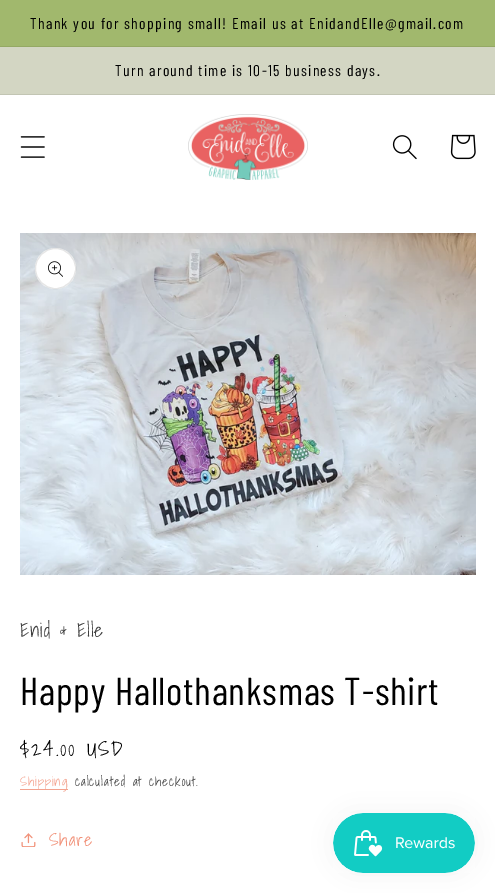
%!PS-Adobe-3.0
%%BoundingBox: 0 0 495 893
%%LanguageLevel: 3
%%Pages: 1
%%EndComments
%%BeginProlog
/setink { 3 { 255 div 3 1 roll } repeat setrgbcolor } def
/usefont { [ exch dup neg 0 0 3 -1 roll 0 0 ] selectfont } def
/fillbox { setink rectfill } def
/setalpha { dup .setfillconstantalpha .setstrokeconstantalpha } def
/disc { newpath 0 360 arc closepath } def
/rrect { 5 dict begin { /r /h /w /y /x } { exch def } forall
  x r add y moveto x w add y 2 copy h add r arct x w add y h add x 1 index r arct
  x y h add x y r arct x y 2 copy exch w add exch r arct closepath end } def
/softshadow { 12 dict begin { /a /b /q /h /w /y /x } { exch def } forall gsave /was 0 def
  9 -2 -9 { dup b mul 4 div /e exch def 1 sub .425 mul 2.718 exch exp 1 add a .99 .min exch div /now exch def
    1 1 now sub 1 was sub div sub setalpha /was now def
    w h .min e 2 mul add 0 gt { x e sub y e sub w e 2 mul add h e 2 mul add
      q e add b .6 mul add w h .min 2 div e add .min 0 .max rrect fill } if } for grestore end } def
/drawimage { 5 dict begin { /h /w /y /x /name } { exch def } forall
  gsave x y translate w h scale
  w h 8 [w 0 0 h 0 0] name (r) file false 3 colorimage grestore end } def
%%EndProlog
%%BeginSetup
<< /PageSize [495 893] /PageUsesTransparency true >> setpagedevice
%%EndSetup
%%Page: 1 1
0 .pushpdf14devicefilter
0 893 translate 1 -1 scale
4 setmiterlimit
0 0 495 893 255 255 255 fillbox
0 0 495 46 161 184 109 fillbox
0 46 495 1 148 169 100 fillbox
/BarlowCondensed-Regular 15.6 usefont
0 0 0 setink
30 29 moveto 1.3 0 (Thank you for shopping small! Email us at EnidandElle@gmail.com) ashow
0 47 495 47 211 214 195 fillbox
0 94 495 1 194 197 179 fillbox
0 0 0 setink
115 76 moveto 1.3 0 (Turn around time is 10-15 business days.) ashow
(assets/img1.rgb) 20 136 25 22 drawimage
(assets/img2.rgb) 188 114 120 66 drawimage
(assets/img3.rgb) 392 135 25 25 drawimage
(assets/img4.rgb) 450 134 26 26 drawimage
(assets/img5.rgb) 20 233 456 342 drawimage
255 255 255 setink
55.5 268.5 20.5 disc fill
0.1 setalpha
0 0 0 setink
55.5 268.5 20 disc stroke
1 setalpha
(assets/img6.rgb) 48 261 15 16 drawimage
/ShadowsIntoLight-Regular 19.5 usefont
64 64 64 setink
20 637 moveto 0.75 0 (Enid & Elle) ashow
/BarlowCondensed-Regular 39 usefont
0 0 0 setink
20 705 moveto 0.75 0 (Happy Hallothanksmas T-shirt) ashow
/ShadowsIntoLight-Regular 20.75 usefont
20 756 moveto 1.75 0 ($24.00 USD) ashow
20 789 48 1 243 162 142 fillbox
/ShadowsIntoLight-Regular 13 usefont
20 786 moveto 0.9 0 (Shipping) ashow
64 64 64 setink
75 786 moveto 0.9 0 (calculated at checkout.) ashow
(assets/img7.rgb) 21 833 15 14 drawimage
/ShadowsIntoLight-Regular 18 usefont
241 146 122 setink
49 846 moveto 0.75 0 (Share) ashow
0 0 0 setink
333 813 142 60 30 12.5 0.05 softshadow
(assets/img8.rgb) 333 813 142 60 drawimage
.poppdf14devicefilter showpage
%%EOF
